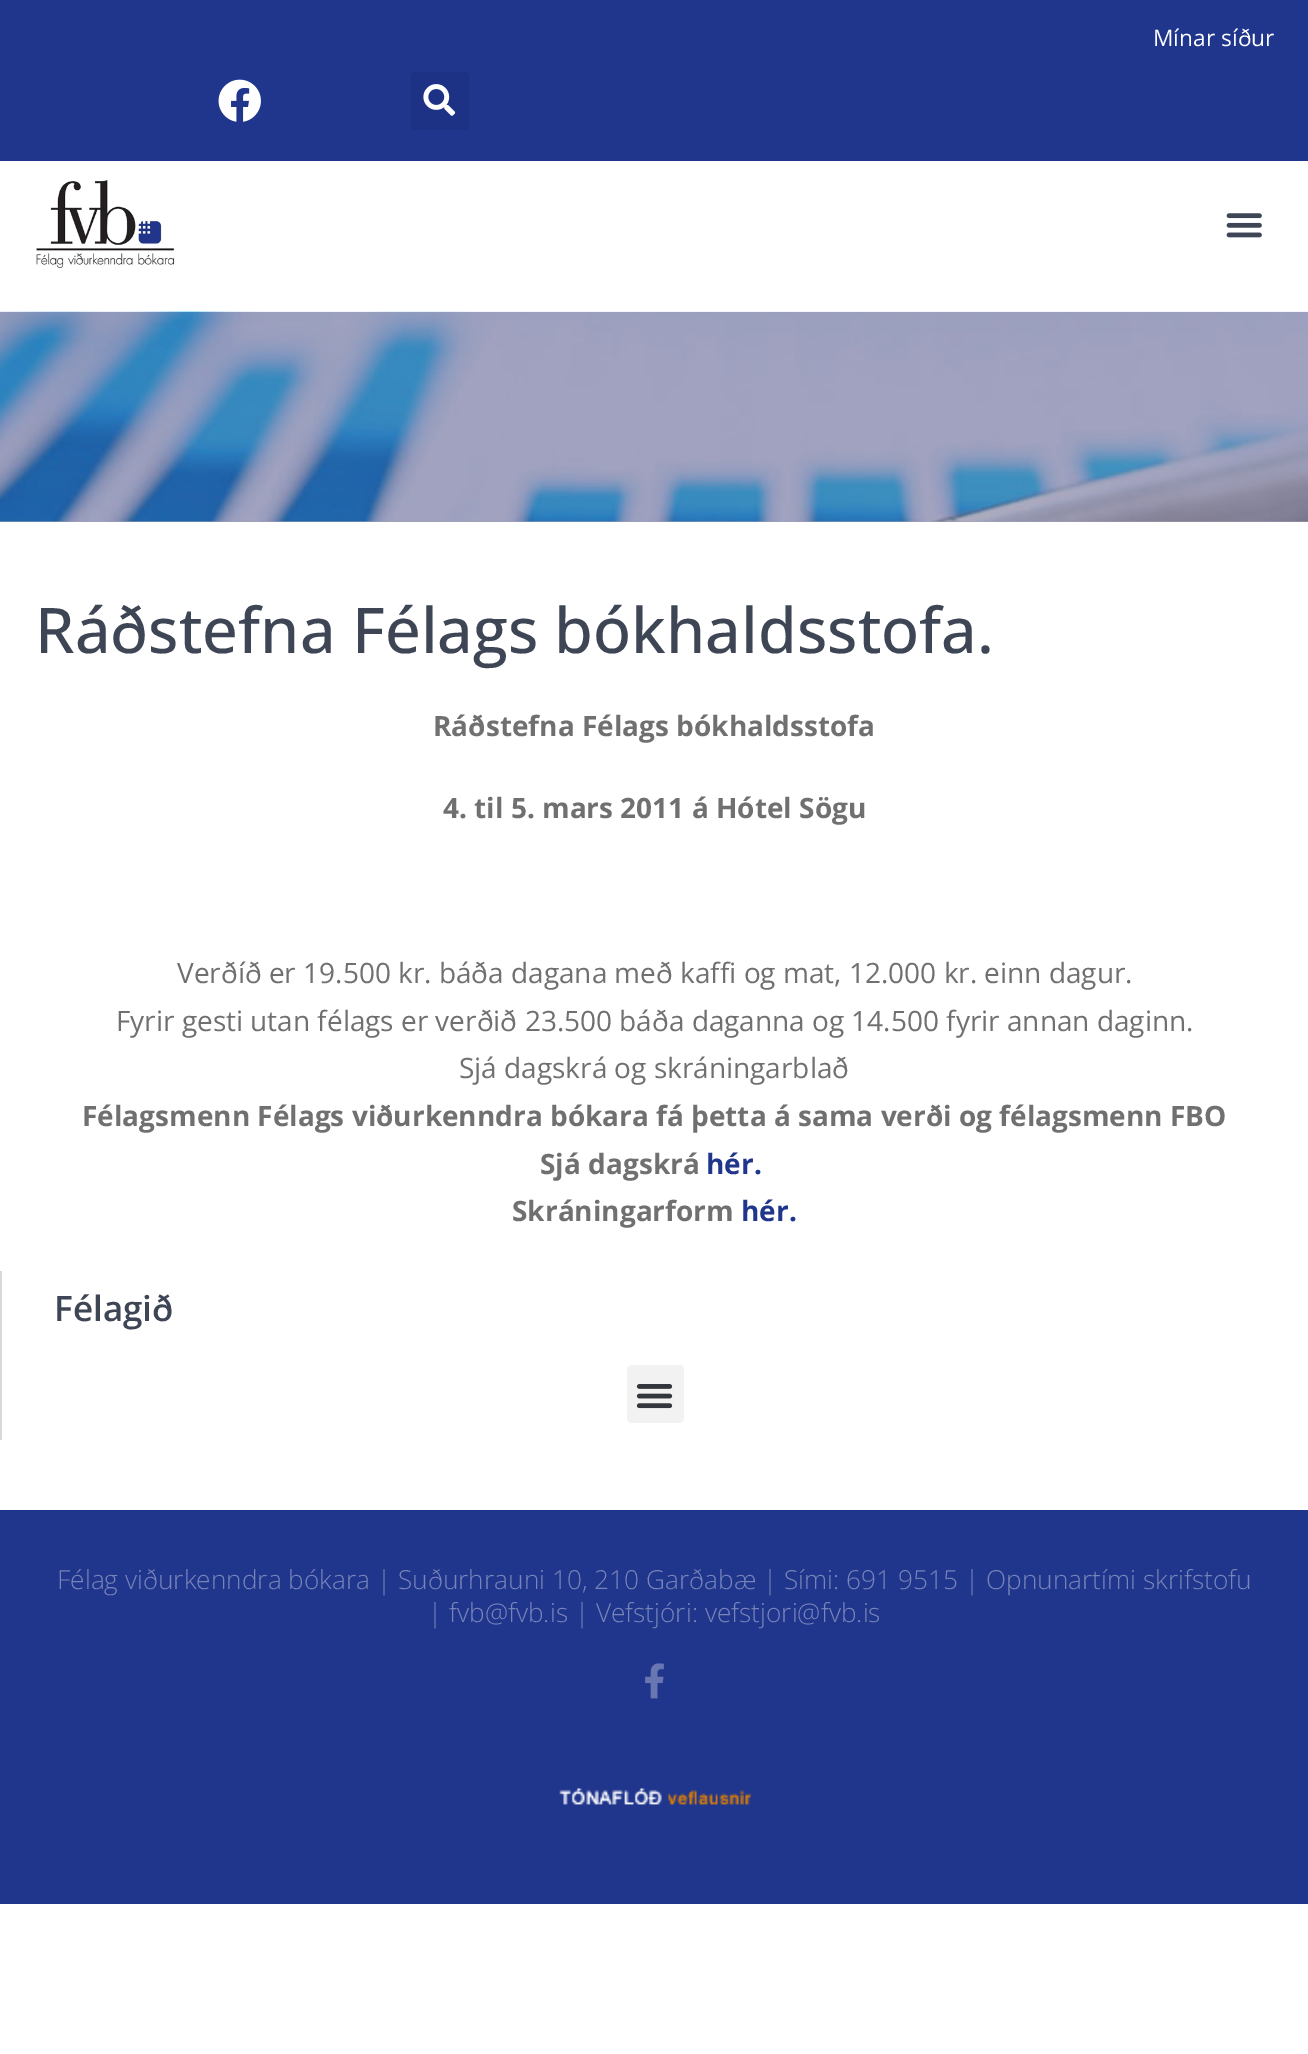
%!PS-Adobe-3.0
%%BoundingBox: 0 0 1308 2054
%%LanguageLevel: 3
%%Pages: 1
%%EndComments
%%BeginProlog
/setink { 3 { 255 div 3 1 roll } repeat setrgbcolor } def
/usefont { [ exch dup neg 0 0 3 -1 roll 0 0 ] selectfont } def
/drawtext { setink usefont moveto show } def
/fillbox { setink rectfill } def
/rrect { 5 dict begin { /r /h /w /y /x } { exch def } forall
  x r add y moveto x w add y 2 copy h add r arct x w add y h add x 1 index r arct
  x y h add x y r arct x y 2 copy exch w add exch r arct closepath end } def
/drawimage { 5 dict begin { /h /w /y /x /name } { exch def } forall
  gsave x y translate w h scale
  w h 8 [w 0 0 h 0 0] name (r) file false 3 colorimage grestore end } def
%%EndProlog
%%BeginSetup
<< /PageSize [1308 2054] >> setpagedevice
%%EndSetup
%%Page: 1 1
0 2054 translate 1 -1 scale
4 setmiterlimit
0 0 1308 2054 255 255 255 fillbox
0 0 1308 161 32 53 140 fillbox
(Mínar síður) 1153 46 /OpenSans-Regular 22.75 255 255 255 drawtext
(assets/img1.rgb) 218 79 43 43 drawimage
30 50 133 setink
411 72 58 58 5 rrect fill
(assets/img2.rgb) 423 84 33 32 drawimage
(assets/img3.rgb) 36 180 139 88 drawimage
(assets/img4.rgb) 1226 213 36 25 drawimage
0 521 1308 1 162 162 180 fillbox
(assets/img5.rgb) 0 311 1308 211 drawimage
(Ráðstefna Félags bókhaldsstofa.) 35 653 /OpenSans-Medium 63 62 69 85 drawtext
(Ráðstefna Félags bókhaldsstofa) 433 736 /OpenSans-Bold 28 112 112 112 drawtext
(4. til 5. mars 2011 á Hótel Sögu) 443 818 /OpenSans-Bold 28 112 112 112 drawtext
(Verðíð er 19.500 kr. báða dagana með kaffi og mat, 12.000 kr. einn dagur.) 177 983 /OpenSans-Regular 28 112 112 112 drawtext
(Fyrir gesti utan félags er verðið 23.500 báða daganna og 14.500 fyrir annan daginn.) 116 1031 /OpenSans-Regular 28 112 112 112 drawtext
(Sjá dagskrá og skráningarblað) 459 1078 /OpenSans-Regular 28 112 112 112 drawtext
(Félagsmenn Félags viðurkenndra bókara fá þetta á sama verði og félagsmenn FBO) 82 1126 /OpenSans-Bold 28 112 112 112 drawtext
(Sjá dagskrá) 540 1174 /OpenSans-Bold 28 112 112 112 drawtext
(hér.) 706 1174 /OpenSans-Bold 28 32 53 140 drawtext
(Skráningarform) 512 1221 /OpenSans-Bold 28 112 112 112 drawtext
(hér.) 741 1221 /OpenSans-Bold 28 32 53 140 drawtext
0 1271 2 169 219 217 216 fillbox
(Félagið) 54 1321 /OpenSans-SemiBold 35 62 69 85 drawtext
242 242 242 setink
627 1365 57 58 5 rrect fill
(assets/img6.rgb) 636 1384 37 25 drawimage
0 1510 1308 394 32 53 140 fillbox
(Félag viðurkenndra bókara | Suðurhrauni 10, 210 Garðabæ | Sími: 691 9515 | Opnunartími skrifstofu) 57 1589 /OpenSans-Light 26.25 119 132 185 drawtext
(| fvb@fvb.is | Vefstjóri: vefstjori@fvb.is) 428 1622 /OpenSans-Light 26.25 119 132 185 drawtext
(assets/img7.rgb) 645 1663 19 36 drawimage
(assets/img8.rgb) 559 1788 192 17 drawimage
showpage
%%EOF
